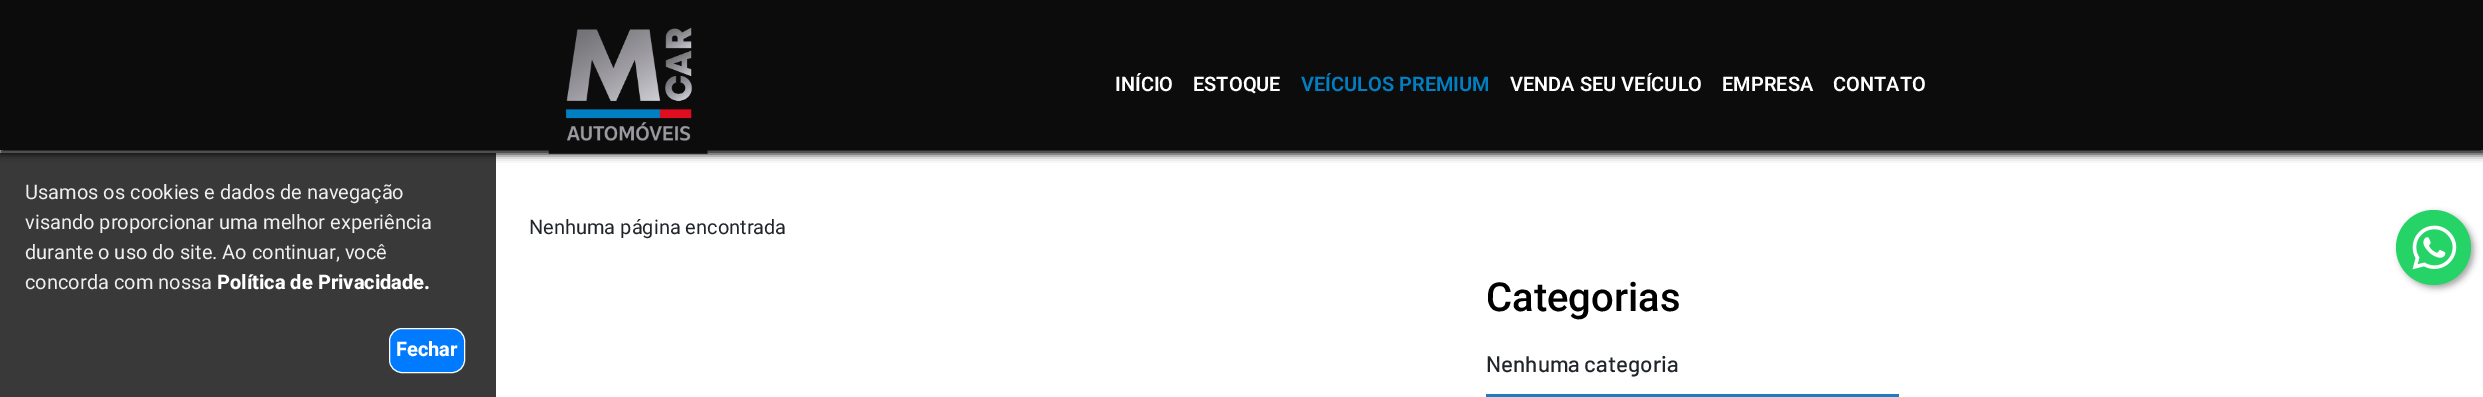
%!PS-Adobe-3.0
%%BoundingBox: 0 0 2483 397
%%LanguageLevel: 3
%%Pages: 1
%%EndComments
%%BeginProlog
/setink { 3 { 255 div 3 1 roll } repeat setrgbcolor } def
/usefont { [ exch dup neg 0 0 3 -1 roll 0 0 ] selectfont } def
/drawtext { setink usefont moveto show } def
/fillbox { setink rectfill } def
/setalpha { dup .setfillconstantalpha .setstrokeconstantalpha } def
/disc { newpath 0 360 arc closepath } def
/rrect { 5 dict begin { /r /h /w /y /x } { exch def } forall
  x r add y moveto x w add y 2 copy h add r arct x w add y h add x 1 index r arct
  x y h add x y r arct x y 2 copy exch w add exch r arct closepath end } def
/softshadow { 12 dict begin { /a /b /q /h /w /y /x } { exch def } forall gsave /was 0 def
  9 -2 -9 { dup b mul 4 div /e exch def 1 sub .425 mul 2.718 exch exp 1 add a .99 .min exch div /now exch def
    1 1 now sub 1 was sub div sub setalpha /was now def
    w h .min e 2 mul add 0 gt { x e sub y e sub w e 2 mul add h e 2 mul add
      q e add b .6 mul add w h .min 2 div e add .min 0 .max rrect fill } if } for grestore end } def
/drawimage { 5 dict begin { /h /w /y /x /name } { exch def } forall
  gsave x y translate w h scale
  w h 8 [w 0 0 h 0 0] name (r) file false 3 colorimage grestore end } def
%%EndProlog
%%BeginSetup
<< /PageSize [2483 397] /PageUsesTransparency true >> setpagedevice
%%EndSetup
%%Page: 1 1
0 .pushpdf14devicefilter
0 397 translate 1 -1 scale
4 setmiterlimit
0 0 2483 397 255 255 255 fillbox
0 0 0 setink
0 4 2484 150 0 4 1 softshadow
0 0 2483 150 12 12 12 fillbox
(assets/img1.rgb) 548 27 160 127 drawimage
(INÍCIO) 1115 91 /Roboto-SemiBold 20 255 255 255 drawtext
(ESTOQUE) 1193 91 /Roboto-SemiBold 20 255 255 255 drawtext
(VEÍCULOS PREMIUM) 1301 91 /Roboto-SemiBold 20 0 127 195 drawtext
(VENDA SEU VEÍCULO) 1510 91 /Roboto-SemiBold 20 255 255 255 drawtext
(EMPRESA) 1722 91 /Roboto-SemiBold 20 255 255 255 drawtext
(CONTATO) 1833 91 /Roboto-SemiBold 20 255 255 255 drawtext
0.8 setalpha
0 153 496 244 8 8 8 fillbox
1 setalpha
(Usamos os cookies e dados de navegação) 25 199 /Roboto-Regular 20 239 239 239 drawtext
(visando proporcionar uma melhor experiência) 25 229 /Roboto-Regular 20 239 239 239 drawtext
(durante o uso do site. Ao continuar, você) 25 259 /Roboto-Regular 20 239 239 239 drawtext
(concorda com nossa) 25 289 /Roboto-Regular 20 239 239 239 drawtext
(Política de Privacidade.) 217 289 /Roboto-ExtraBold 20 255 255 255 drawtext
0 123 255 setink
389.5 328.5 75 44 12.5 rrect gsave fill grestore
255 255 255 setink
stroke
(Fechar) 396 356 /Roboto-ExtraBold 20 255 255 255 drawtext
(Nenhuma página encontrada) 529 234 /Roboto-Regular 20 33 37 41 drawtext
(Categorias) 1486 311 /Roboto-Medium 40 0 0 0 drawtext
1486 394 413 3 28 126 192 fillbox
(Nenhuma categoria) 1486 372 /Barlow-Medium 22.5 33 37 41 drawtext
0 0 0 setink
2399 213 75 75 37.5 3 0.34 softshadow
37 211 102 setink
2433.5 247.5 37.5 disc fill
(assets/img2.rgb) 2412 225 45 45 drawimage
.poppdf14devicefilter showpage
%%EOF
